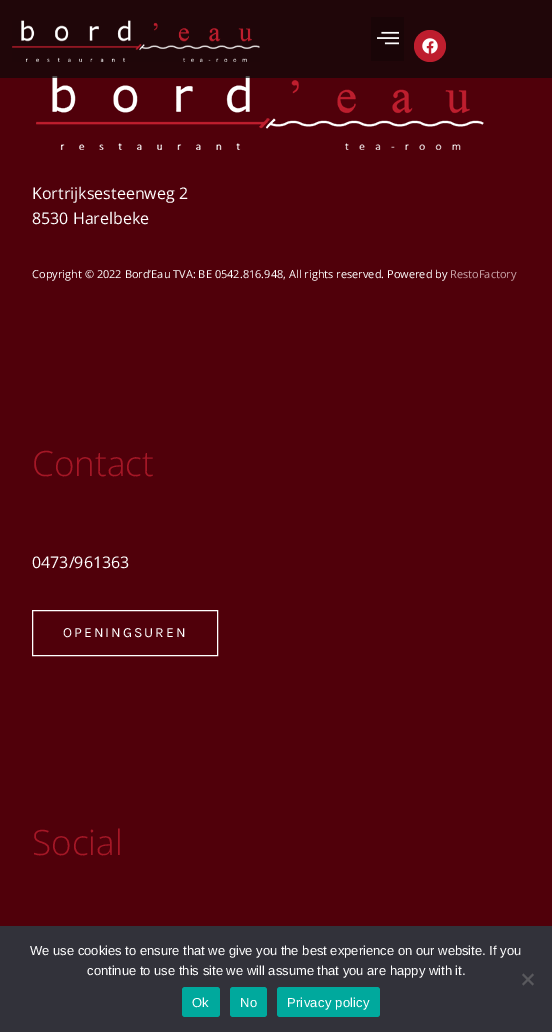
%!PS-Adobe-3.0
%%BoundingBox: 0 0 552 1032
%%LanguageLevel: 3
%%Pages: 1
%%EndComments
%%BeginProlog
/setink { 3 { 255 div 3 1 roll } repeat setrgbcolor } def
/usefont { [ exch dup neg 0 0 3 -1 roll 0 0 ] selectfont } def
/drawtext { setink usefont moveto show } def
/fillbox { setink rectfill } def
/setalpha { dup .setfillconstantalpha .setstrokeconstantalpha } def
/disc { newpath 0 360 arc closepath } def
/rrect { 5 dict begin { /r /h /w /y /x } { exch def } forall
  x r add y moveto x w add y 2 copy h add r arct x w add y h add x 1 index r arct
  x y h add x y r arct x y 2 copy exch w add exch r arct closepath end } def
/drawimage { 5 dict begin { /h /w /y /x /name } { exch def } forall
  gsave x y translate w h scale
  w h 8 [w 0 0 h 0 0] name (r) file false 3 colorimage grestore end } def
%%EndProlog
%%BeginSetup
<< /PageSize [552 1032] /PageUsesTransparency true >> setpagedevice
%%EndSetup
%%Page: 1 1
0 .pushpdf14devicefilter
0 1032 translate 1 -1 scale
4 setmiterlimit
0 0 552 1032 80 0 10 fillbox
(assets/img4.rgb) 36 76 448 74 drawimage
0.3 setalpha
0 0 552 78 46 43 40 fillbox
0.55 setalpha
0 0 552 78 0 0 0 fillbox
1 setalpha
(assets/img1.rgb) 12 20 248 42 drawimage
371 17 33 44 25 5 7 fillbox
(assets/img2.rgb) 377 31 22 14 drawimage
190 30 46 setink
430 46 16 disc fill
(assets/img3.rgb) 422 38 16 16 drawimage
(Kortrijksesteenweg 2) 32 199 /OpenSans-Regular 16 255 255 255 drawtext
(8530 Harelbeke) 32 224 /OpenSans-Regular 16 255 255 255 drawtext
(Copyright © 2022 Bord’Eau TVA: BE 0542.816.948, All rights reserved. Powered by) 32 278 /OpenSans-Regular 11 255 255 255 drawtext
(RestoFactory) 450 278 /OpenSans-Regular 11 200 161 166 drawtext
(Contact) 32 476 /OpenSans-Light 35 165 23 38 drawtext
(0473/961363) 32 568 /OpenSans-Regular 16 255 255 255 drawtext
32.5 610.5 185 45 rectstroke
/Karla-Regular 14 usefont
63 637 moveto 2 0 (OPENINGSUREN) ashow
(Social) 32 855 /OpenSans-Light 35 165 23 38 drawtext
0 926 552 106 50 50 58 fillbox
(We use cookies to ensure that we give you the best experience on our website. If you) 30 955 /LiberationSans-Regular 13 255 255 255 drawtext
(continue to use this site we will assume that you are happy with it.) 87 975 /LiberationSans-Regular 13 255 255 255 drawtext
89 89 93 setink
532.5 973.5 moveto 534 975 lineto 523.5 985.5 lineto 522 984 lineto closepath fill
522 975 moveto 523.5 973.5 lineto 534 984 lineto 532.5 985.5 lineto closepath fill
0 169 157 setink
182 987 38 30 3 rrect fill
255 255 255 setink
192 1007 moveto 0.25 0 (Ok) ashow
0 169 157 setink
230 987 37 30 3 rrect fill
255 255 255 setink
240 1007 moveto 0.25 0 (No) ashow
0 169 157 setink
277 987 103 30 3 rrect fill
255 255 255 setink
287 1007 moveto 0.25 0 (Privacy policy) ashow
.poppdf14devicefilter showpage
%%EOF
